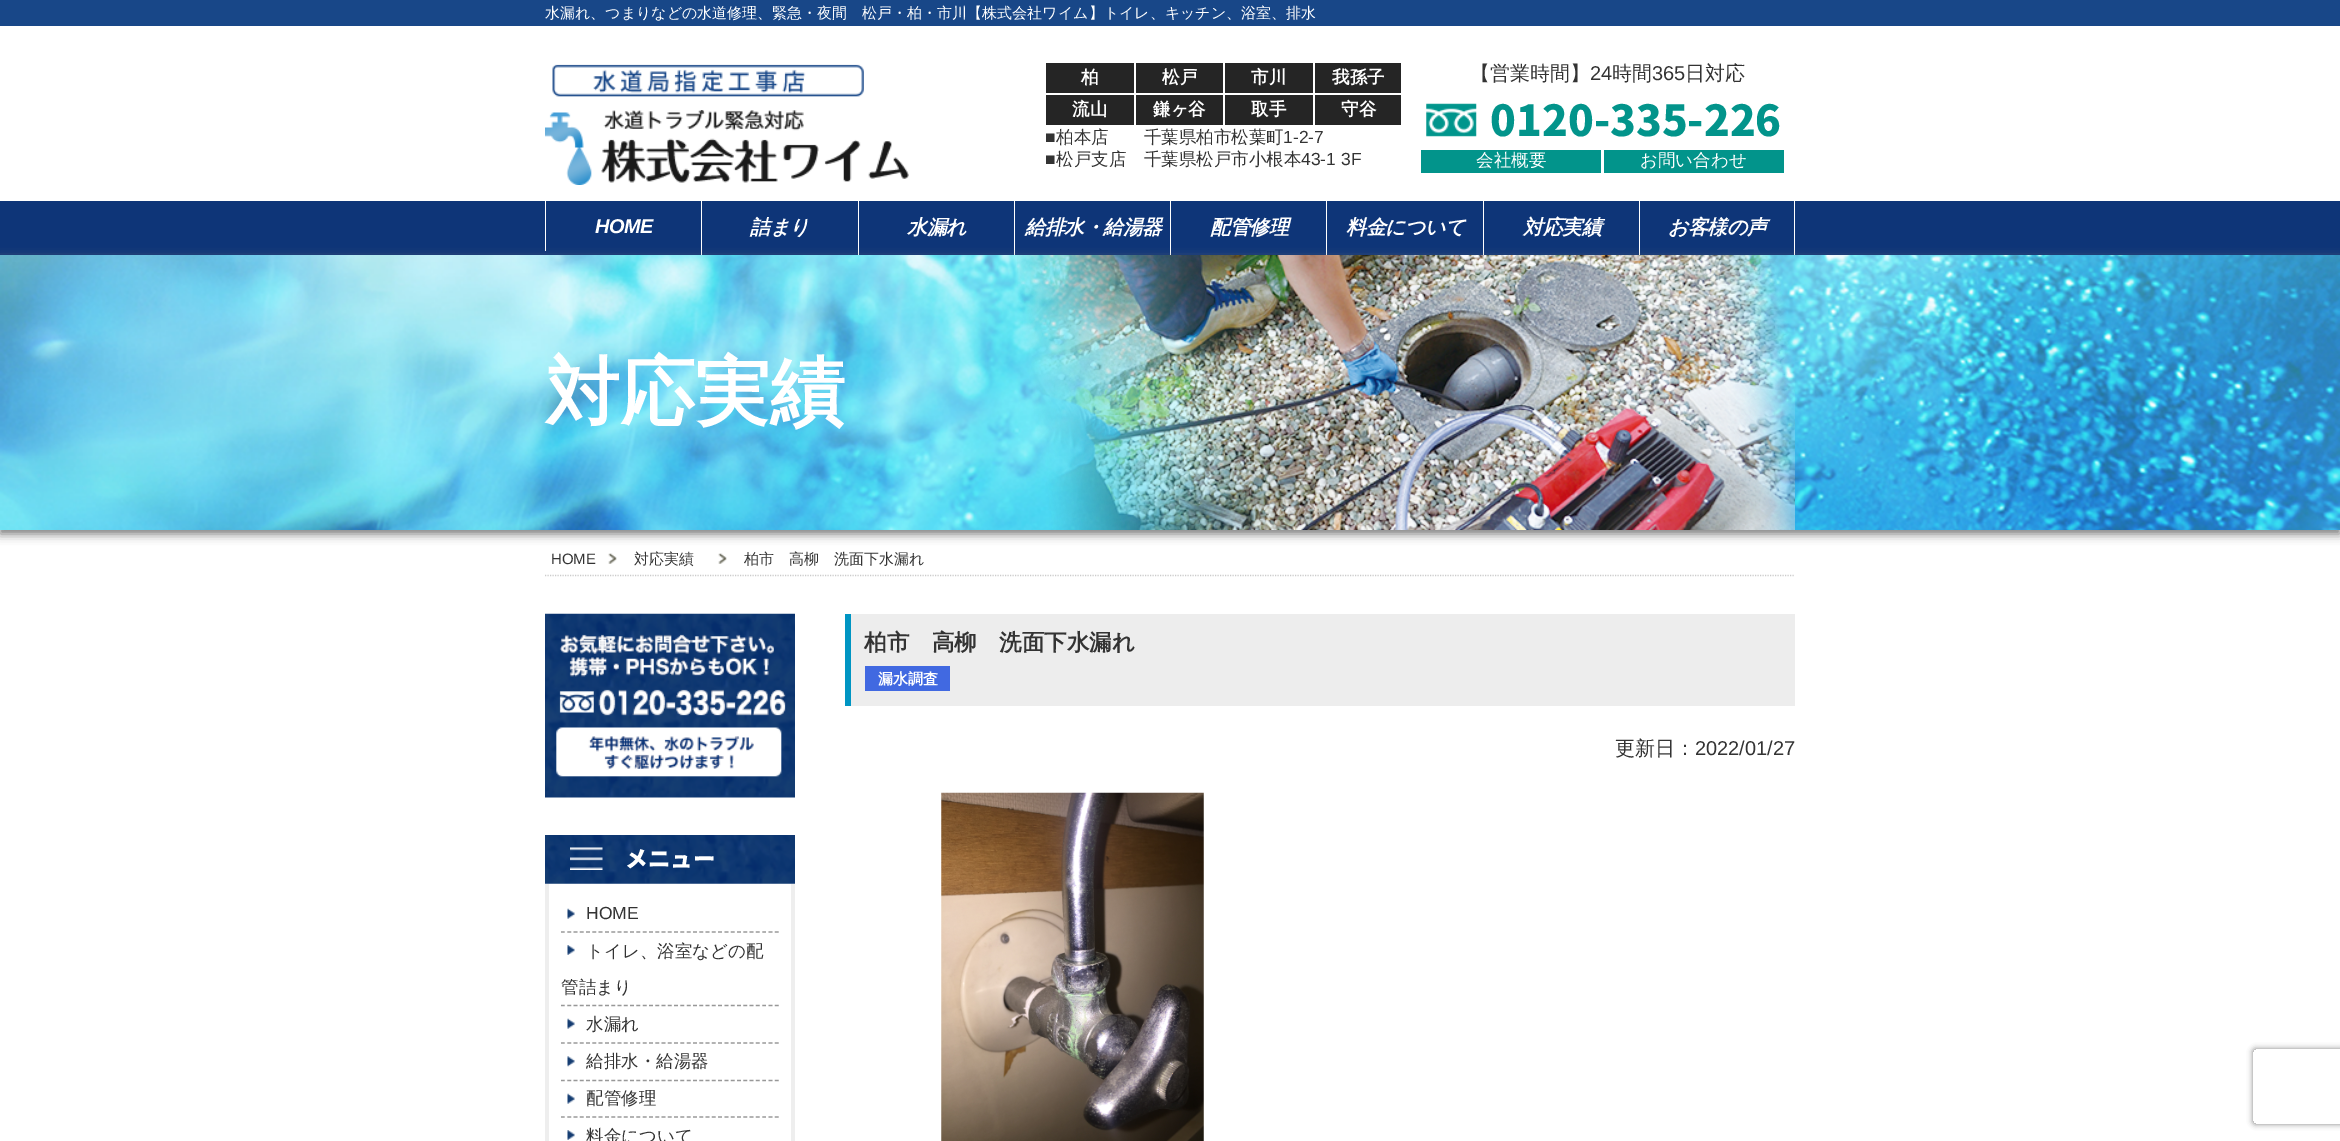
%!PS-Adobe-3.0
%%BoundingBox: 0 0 2340 1141
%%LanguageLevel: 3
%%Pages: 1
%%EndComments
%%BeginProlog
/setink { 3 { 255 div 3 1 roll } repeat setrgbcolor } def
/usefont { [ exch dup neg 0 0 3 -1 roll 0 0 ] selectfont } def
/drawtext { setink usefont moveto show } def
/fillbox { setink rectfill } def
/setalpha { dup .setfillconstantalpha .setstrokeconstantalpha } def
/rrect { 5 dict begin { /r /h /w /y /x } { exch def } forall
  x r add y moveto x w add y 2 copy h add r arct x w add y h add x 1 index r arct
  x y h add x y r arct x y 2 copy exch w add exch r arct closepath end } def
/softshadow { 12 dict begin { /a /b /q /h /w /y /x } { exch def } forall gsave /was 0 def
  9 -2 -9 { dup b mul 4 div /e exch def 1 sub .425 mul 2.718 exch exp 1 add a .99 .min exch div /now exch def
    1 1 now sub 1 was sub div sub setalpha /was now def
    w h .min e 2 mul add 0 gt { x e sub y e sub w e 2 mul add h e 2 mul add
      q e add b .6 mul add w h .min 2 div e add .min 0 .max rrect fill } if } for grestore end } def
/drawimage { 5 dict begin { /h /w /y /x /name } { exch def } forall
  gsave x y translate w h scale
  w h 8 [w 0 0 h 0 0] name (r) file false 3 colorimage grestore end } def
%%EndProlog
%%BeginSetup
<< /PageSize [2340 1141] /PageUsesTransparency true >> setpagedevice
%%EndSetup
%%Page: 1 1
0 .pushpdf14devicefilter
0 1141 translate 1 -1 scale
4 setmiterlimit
0 0 2340 1141 255 255 255 fillbox
0 0 2340 26 24 71 136 fillbox
(水漏れ、つまりなどの水道修理、緊急・夜間　松戸・柏・市川【株式会社ワイム】トイレ、キッチン、浴室、排水) 545 18 /WenQuanYiZenHei-Medium 15 255 255 255 drawtext
(assets/img1.rgb) 552 64 312 33 drawimage
(assets/img2.rgb) 545 110 364 75 drawimage
1046 63 88 30 37 37 37 fillbox
(柏) 1081 83 /WenQuanYiZenHei-Bold 17.5 255 255 255 drawtext
1136 63 87 30 37 37 37 fillbox
(松戸) 1162 83 /WenQuanYiZenHei-Bold 17.5 255 255 255 drawtext
1225 63 88 30 37 37 37 fillbox
(市川) 1251 83 /WenQuanYiZenHei-Bold 17.5 255 255 255 drawtext
1315 63 86 30 37 37 37 fillbox
(我孫子) 1332 83 /WenQuanYiZenHei-Bold 17.5 255 255 255 drawtext
1046 95 88 30 37 37 37 fillbox
(流山) 1072 115 /WenQuanYiZenHei-Bold 17.5 255 255 255 drawtext
1136 95 87 30 37 37 37 fillbox
(鎌ヶ谷) 1153 115 /WenQuanYiZenHei-Bold 17.5 255 255 255 drawtext
1225 95 88 30 37 37 37 fillbox
(取手) 1251 115 /WenQuanYiZenHei-Bold 17.5 255 255 255 drawtext
1315 95 86 30 37 37 37 fillbox
(守谷) 1341 115 /WenQuanYiZenHei-Bold 17.5 255 255 255 drawtext
(■) 1045 143 /LiberationSans-Regular 17.5 51 51 51 drawtext
(柏本店　　千葉県柏市松葉町) 1056 143 /WenQuanYiZenHei-Medium 17.5 51 51 51 drawtext
(1-2-7) 1283 143 /LiberationSans-Regular 17.5 51 51 51 drawtext
(■) 1045 165 /LiberationSans-Regular 17.5 51 51 51 drawtext
(松戸支店　千葉県松戸市小根本) 1056 165 /WenQuanYiZenHei-Medium 17.5 51 51 51 drawtext
(43-1 3F) 1301 165 /LiberationSans-Regular 17.5 51 51 51 drawtext
(【営業時間】) 1470 80 /WenQuanYiZenHei-Medium 20 51 51 51 drawtext
(24) 1590 80 /LiberationSans-Regular 20 51 51 51 drawtext
(時間) 1612 80 /WenQuanYiZenHei-Medium 20 51 51 51 drawtext
(365) 1652 80 /LiberationSans-Regular 20 51 51 51 drawtext
(日対応) 1685 80 /WenQuanYiZenHei-Medium 20 51 51 51 drawtext
(assets/img3.rgb) 1426 103 51 34 drawimage
(0120-335-226) 1490 136 /NotoSansJP-Black 42.5 2 148 139 drawtext
1421 150 180 23 2 148 139 fillbox
(会社概要) 1476 166 /WenQuanYiZenHei-Medium 17.5 255 255 255 drawtext
1604 150 180 23 2 148 139 fillbox
(お問い合わせ) 1640 166 /WenQuanYiZenHei-Medium 17.5 255 255 255 drawtext
0 201 2340 54 14 53 120 fillbox
545 201 1 50 255 255 255 fillbox
/LiberationSans-BoldItalic 20 usefont
595 233 moveto -0.5 0 (HOME) ashow
701 201 1 54 255 255 255 fillbox
/WenQuanYiZenHei-BoldItalic 20 usefont
750 234 moveto -0.5 0 (詰まり) ashow
858 201 1 54 255 255 255 fillbox
907 234 moveto -0.5 0 (水漏れ) ashow
1014 201 1 54 255 255 255 fillbox
1025 234 moveto -0.5 0 (給排水・給湯器) ashow
1170 201 1 54 255 255 255 fillbox
1210 234 moveto -0.5 0 (配管修理) ashow
1326 201 1 54 255 255 255 fillbox
1346 234 moveto -0.5 0 (料金について) ashow
1483 201 1 54 255 255 255 fillbox
1523 234 moveto -0.5 0 (対応実績) ashow
1794 201 1 54 255 255 255 fillbox
1639 201 1 54 255 255 255 fillbox
1668 234 moveto -0.5 0 (お客様の声) ashow
(assets/img4.rgb) 0 255 2340 275 drawimage
gsave
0 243 moveto 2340 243 lineto 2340 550 lineto 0 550 lineto closepath 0 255 moveto 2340 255 lineto 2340 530 lineto 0 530 lineto closepath eoclip newpath
115 115 115 setink
0 259 2340 275 0 5 1 softshadow
grestore
(assets/img5.rgb) 1017 255 778 275 drawimage
(対応実績) 545 418 /WenQuanYiZenHei-Bold 75 255 255 255 drawtext
204 204 204 setink
1.2 setlinewidth
[1.25 1.25] 0 setdash
545 575.5 moveto 1795 575.5 lineto stroke
(HOME) 551 564 /LiberationSans-Regular 15 51 51 51 drawtext
(assets/img6.rgb) 608 553 9 11 drawimage
(対応実績) 634 564 /WenQuanYiZenHei-Medium 15 51 51 51 drawtext
(assets/img7.rgb) 718 553 9 11 drawimage
(柏市　高柳　洗面下水漏れ) 744 564 /WenQuanYiZenHei-Medium 15 51 51 51 drawtext
851 614 944 92 237 237 237 fillbox
845 614 6 92 0 149 195 fillbox
(柏市　高柳　洗面下水漏れ) 864 650 /WenQuanYiZenHei-Bold 22.5 51 51 51 drawtext
865 666 85 25 65 105 225 fillbox
(漏水調査) 878 684 /WenQuanYiZenHei-Bold 15 255 255 255 drawtext
(更新日：) 1615 755 /WenQuanYiZenHei-Medium 20 51 51 51 drawtext
(2022/01/27) 1695 755 /LiberationSans-Regular 20 51 51 51 drawtext
(assets/img8.rgb) 941 792 263 349 drawimage
(assets/img9.rgb) 545 613 250 185 drawimage
(assets/img10.rgb) 545 835 250 49 drawimage
(メニュー) 625 867 /NotoSansJP-Black 22.5 255 255 255 drawtext
791 884 4 257 238 238 238 fillbox
545 884 4 257 238 238 238 fillbox
152 152 152 setink
[3.75 2.54] 0 setdash
561 932 moveto 779 932 lineto stroke
(assets/img11.rgb) 567 908 8 11 drawimage
(HOME) 586 919 /LiberationSans-Regular 17.5 51 51 51 drawtext
152 152 152 setink
561 1005.5 moveto 779 1005.5 lineto stroke
(assets/img12.rgb) 567 945 8 10 drawimage
(トイレ、浴室などの配) 586 957 /WenQuanYiZenHei-Medium 17.5 51 51 51 drawtext
(管詰まり) 561 993 /WenQuanYiZenHei-Medium 17.5 51 51 51 drawtext
152 152 152 setink
561 1043 moveto 779 1043 lineto stroke
(assets/img11.rgb) 567 1018 8 11 drawimage
(水漏れ) 586 1030 /WenQuanYiZenHei-Medium 17.5 51 51 51 drawtext
152 152 152 setink
561 1080.5 moveto 779 1080.5 lineto stroke
(assets/img13.rgb) 567 1056 8 11 drawimage
(給排水・給湯器) 586 1067 /WenQuanYiZenHei-Medium 17.5 51 51 51 drawtext
152 152 152 setink
561 1117 moveto 779 1117 lineto stroke
(assets/img11.rgb) 567 1093 8 11 drawimage
(配管修理) 586 1104 /WenQuanYiZenHei-Medium 17.5 51 51 51 drawtext
(assets/img12.rgb) 567 1130 8 10 drawimage
(料金について) 586 1142 /WenQuanYiZenHei-Medium 17.5 51 51 51 drawtext
gsave
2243 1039 moveto 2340 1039 lineto 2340 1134 lineto 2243 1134 lineto closepath 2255.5 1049 moveto 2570.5 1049 lineto 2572 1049 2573 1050 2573 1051.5 curveto 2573 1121.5 lineto 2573 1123 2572 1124 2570.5 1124 curveto 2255.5 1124 lineto 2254 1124 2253 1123 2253 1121.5 curveto 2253 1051.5 lineto 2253 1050 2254 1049 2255.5 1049 curveto closepath eoclip newpath
128 128 128 setink
2253 1049 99 75 2.5 3 1 softshadow
grestore
.poppdf14devicefilter showpage
%%EOF
